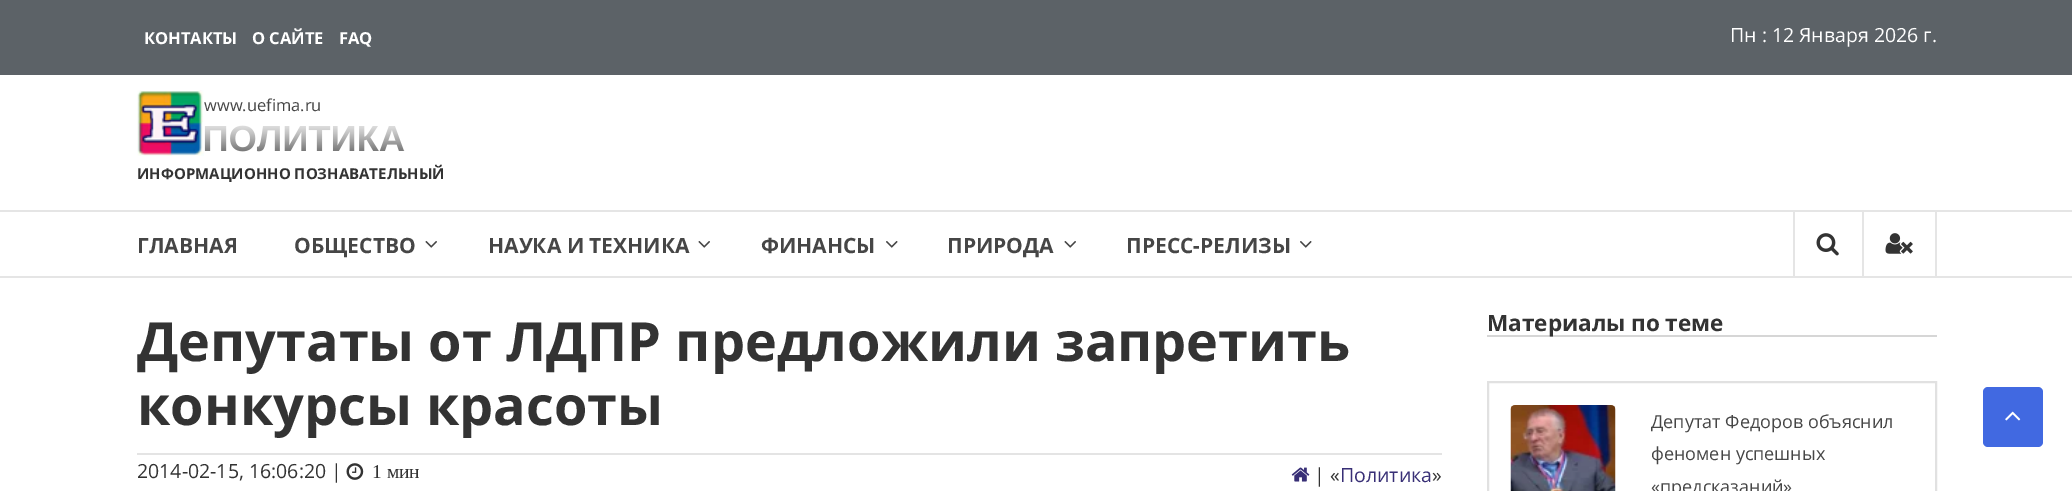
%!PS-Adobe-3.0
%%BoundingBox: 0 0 2072 491
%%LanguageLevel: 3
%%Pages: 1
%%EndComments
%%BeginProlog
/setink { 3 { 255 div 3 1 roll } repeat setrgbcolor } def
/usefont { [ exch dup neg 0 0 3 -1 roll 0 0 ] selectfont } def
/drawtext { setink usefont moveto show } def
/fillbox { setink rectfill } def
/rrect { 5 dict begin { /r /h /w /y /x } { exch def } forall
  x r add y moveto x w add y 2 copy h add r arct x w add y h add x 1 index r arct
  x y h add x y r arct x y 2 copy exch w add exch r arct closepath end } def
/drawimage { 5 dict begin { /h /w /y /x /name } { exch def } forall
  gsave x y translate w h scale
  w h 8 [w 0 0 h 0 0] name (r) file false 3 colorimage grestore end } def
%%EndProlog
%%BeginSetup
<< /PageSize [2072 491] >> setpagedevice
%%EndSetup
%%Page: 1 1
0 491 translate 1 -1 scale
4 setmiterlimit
0 0 2072 491 255 255 255 fillbox
0 0 2072 75 92 98 103 fillbox
(КОНТАКТЫ) 144 44 /OpenSans-Bold 16.5 255 255 255 drawtext
(О САЙТЕ) 252 44 /OpenSans-Bold 16.5 255 255 255 drawtext
(FAQ) 339 44 /OpenSans-Bold 16.5 255 255 255 drawtext
(Пн : 12 Января 2026 г.) 1730 42 /OpenSans-Regular 19.5 255 255 255 drawtext
(assets/img1.rgb) 137 90 67 66 drawimage
(www.uefima.ru) 204 111 /OpenSans-Regular 16.5 70 70 70 drawtext
(ПОЛИТИКА) 203 151 /LiberationSans-Bold 36.25 70 70 70 drawtext
(assets/img2.rgb) 202 122 202 30 drawimage
(ИНФОРМАЦИОННО ПОЗНАВАТЕЛЬНЫЙ) 137 179 /OpenSans-Bold 15 51 51 51 drawtext
0 210 2072 2 229 229 229 fillbox
0 276 2072 2 229 229 229 fillbox
(ГЛАВНАЯ) 137 253 /OpenSans-Bold 21 70 70 70 drawtext
(ОБЩЕСТВО) 294 253 /OpenSans-Bold 21 70 70 70 drawtext
(assets/img3.rgb) 425 241 12 7 drawimage
(НАУКА И ТЕХНИКА) 488 253 /OpenSans-Bold 21 70 70 70 drawtext
(assets/img3.rgb) 698 241 12 7 drawimage
(ФИНАНСЫ) 761 253 /OpenSans-Bold 21 70 70 70 drawtext
(assets/img4.rgb) 886 241 12 7 drawimage
(ПРИРОДА) 947 253 /OpenSans-Bold 21 70 70 70 drawtext
(assets/img3.rgb) 1064 241 12 7 drawimage
(ПРЕСС-РЕЛИЗЫ) 1126 253 /OpenSans-Bold 21 70 70 70 drawtext
(assets/img4.rgb) 1300 241 12 7 drawimage
1793 212 2 64 229 229 229 fillbox
(assets/img5.rgb) 1816 233 23 23 drawimage
1935 212 2 64 229 229 229 fillbox
1862 212 2 64 229 229 229 fillbox
(assets/img6.rgb) 1885 233 28 21 drawimage
(Депутаты от ЛДПР предложили запретить) 137 361 /OpenSans-Bold 54 51 51 51 drawtext
(конкурсы красоты) 137 425 /OpenSans-Bold 54 51 51 51 drawtext
137 453 1305 2 228 228 228 fillbox
(2014-02-15, 16:06:20 |) 137 478 /OpenSans-Regular 19.5 51 51 51 drawtext
(assets/img7.rgb) 346 463 18 17 drawimage
(1 мин) 372 478 /LiberationSerif-Regular 19.5 51 51 51 drawtext
(assets/img8.rgb) 1291 467 19 15 drawimage
(| «) 1314 482 /OpenSans-Regular 19.5 51 51 51 drawtext
(Политика) 1340 482 /OpenSans-Regular 19.5 56 47 118 drawtext
(») 1432 482 /OpenSans-Regular 19.5 51 51 51 drawtext
1487 335 450 2 214 214 214 fillbox
(Материалы по теме) 1487 331 /OpenSans-Bold 22.5 51 51 51 drawtext
225 225 225 setink
2 setlinewidth
1488 382 448 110 rectstroke
(assets/img9.rgb) 1510 405 106 86 drawimage
(Депутат Федоров объяснил) 1651 428 /OpenSans-Regular 18 70 70 70 drawtext
(феномен успешных) 1651 460 /OpenSans-Regular 18 70 70 70 drawtext
(«предсказаний») 1651 493 /OpenSans-Regular 18 70 70 70 drawtext
65 105 225 setink
1983 387 60 60 5 rrect fill
(assets/img10.rgb) 2005 411 16 10 drawimage
showpage
%%EOF
